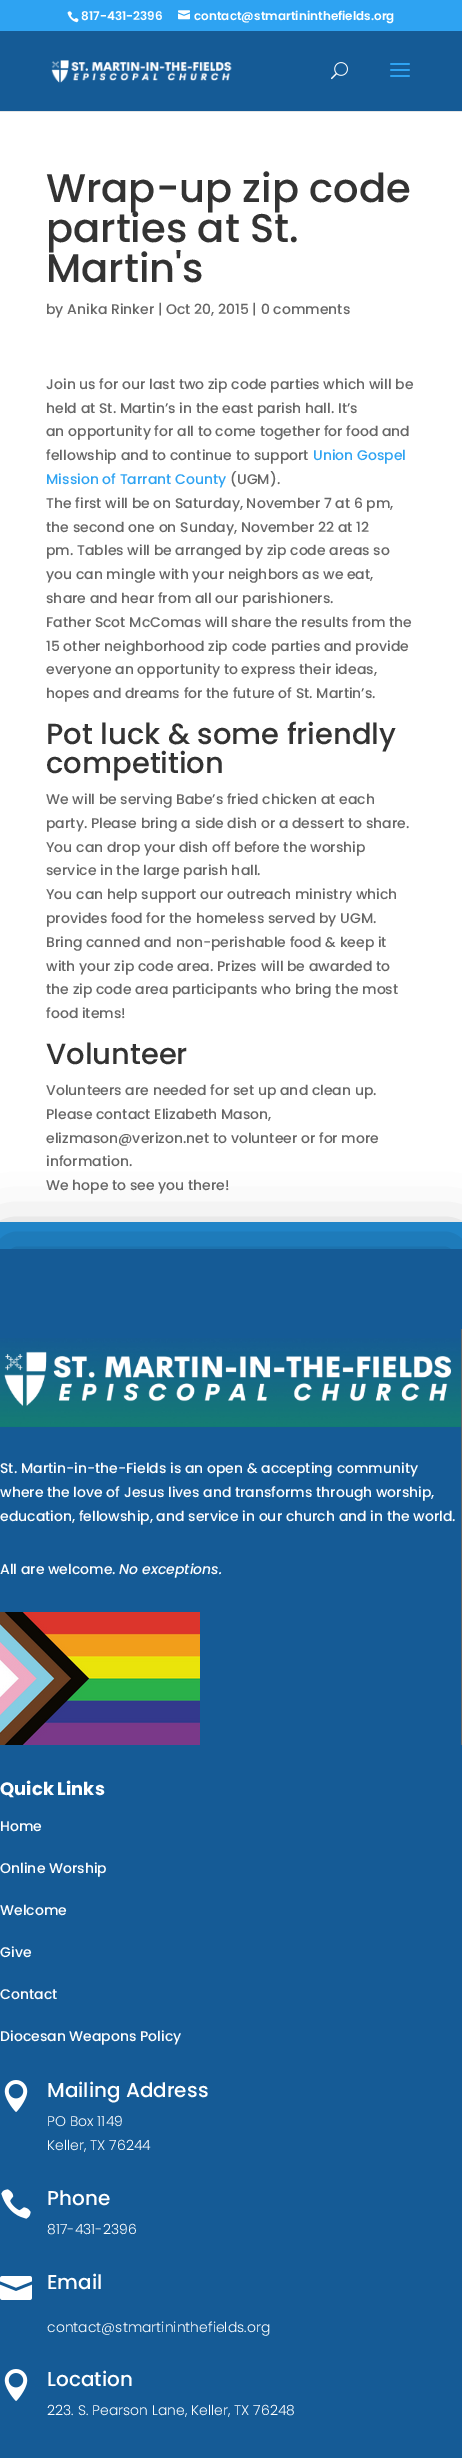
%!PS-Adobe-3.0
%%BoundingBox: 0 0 462 2458
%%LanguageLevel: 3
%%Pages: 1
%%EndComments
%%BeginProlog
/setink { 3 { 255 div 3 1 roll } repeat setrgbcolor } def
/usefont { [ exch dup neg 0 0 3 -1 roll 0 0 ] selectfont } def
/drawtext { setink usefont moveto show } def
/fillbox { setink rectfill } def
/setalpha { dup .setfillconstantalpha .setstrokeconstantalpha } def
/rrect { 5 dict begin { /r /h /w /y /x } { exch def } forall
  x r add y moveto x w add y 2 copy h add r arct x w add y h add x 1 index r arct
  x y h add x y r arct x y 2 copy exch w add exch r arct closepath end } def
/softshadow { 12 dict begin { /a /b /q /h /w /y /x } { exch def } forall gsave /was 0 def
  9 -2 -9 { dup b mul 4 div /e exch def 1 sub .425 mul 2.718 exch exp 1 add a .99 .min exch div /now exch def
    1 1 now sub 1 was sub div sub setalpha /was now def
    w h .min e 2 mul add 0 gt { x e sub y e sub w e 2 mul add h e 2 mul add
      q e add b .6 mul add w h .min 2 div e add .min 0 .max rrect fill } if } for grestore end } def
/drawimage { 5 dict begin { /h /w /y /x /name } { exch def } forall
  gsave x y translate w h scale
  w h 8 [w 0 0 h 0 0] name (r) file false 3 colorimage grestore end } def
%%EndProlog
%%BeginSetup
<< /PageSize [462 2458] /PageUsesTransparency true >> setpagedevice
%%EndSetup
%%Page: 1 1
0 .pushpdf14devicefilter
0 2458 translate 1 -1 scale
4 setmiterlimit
0 0 462 2458 35 145 219 fillbox
0 0 462 31 46 163 242 fillbox
(assets/img1.rgb) 67 11 12 12 drawimage
(817-431-2396) 81 20 /Poppins-SemiBold 12 255 255 255 drawtext
(assets/img2.rgb) 178 10 12 10 drawimage
(contact@stmartininthefields.org) 194 20 /Poppins-SemiBold 12 255 255 255 drawtext
0 111 462 1 230 230 230 fillbox
0 31 462 80 21 91 150 fillbox
(assets/img3.rgb) 51 60 181 23 drawimage
(assets/img4.rgb) 331 62 17 18 drawimage
(assets/img5.rgb) 390 63 20 14 drawimage
0 112 462 1110 255 255 255 fillbox
(Wrap-up zip code) 46 202 /Poppins-Medium 40 51 51 51 drawtext
(parties at St.) 46 242 /Poppins-Medium 40 51 51 51 drawtext
(Martin's) 46 282 /Poppins-Medium 40 51 51 51 drawtext
(by Anika Rinker | Oct 20, 2015 | 0 comments) 46 314 /Poppins-Medium 14 102 102 102 drawtext
(Join us for our last two zip code parties which will be) 46 389 /Poppins-Medium 14 102 102 102 drawtext
(held at St. Martin’s in the east parish hall. It’s) 46 413 /Poppins-Medium 14 102 102 102 drawtext
(an opportunity for all to come together for food and) 46 436 /Poppins-Medium 14 102 102 102 drawtext
(fellowship and to continue to support) 46 460 /Poppins-Medium 14 102 102 102 drawtext
(Union Gospel) 313 460 /Poppins-Medium 14 46 163 242 drawtext
(Mission of Tarrant County) 46 484 /Poppins-Medium 14 46 163 242 drawtext
(\(UGM\).) 230 484 /Poppins-Medium 14 102 102 102 drawtext
(The first will be on Saturday, November 7 at 6 pm,) 46 508 /Poppins-Medium 14 102 102 102 drawtext
(the second one on Sunday, November 22 at 12) 46 532 /Poppins-Medium 14 102 102 102 drawtext
(pm. Tables will be arranged by zip code areas so) 46 555 /Poppins-Medium 14 102 102 102 drawtext
(you can mingle with your neighbors as we eat,) 46 579 /Poppins-Medium 14 102 102 102 drawtext
(share and hear from all our parishioners.) 46 603 /Poppins-Medium 14 102 102 102 drawtext
(Father Scot McComas will share the results from the) 46 627 /Poppins-Medium 14 102 102 102 drawtext
(15 other neighborhood zip code parties and provide) 46 651 /Poppins-Medium 14 102 102 102 drawtext
(everyone an opportunity to express their ideas,) 46 674 /Poppins-Medium 14 102 102 102 drawtext
(hopes and dreams for the future of St. Martin’s.) 46 698 /Poppins-Medium 14 102 102 102 drawtext
(Pot luck & some friendly) 46 744 /Poppins-Medium 29 51 51 51 drawtext
(competition) 46 773 /Poppins-Medium 29 51 51 51 drawtext
(We will be serving Babe’s fried chicken at each) 46 804 /Poppins-Medium 14 102 102 102 drawtext
(party. Please bring a side dish or a dessert to share.) 46 828 /Poppins-Medium 14 102 102 102 drawtext
(You can drop your dish off before the worship) 46 852 /Poppins-Medium 14 102 102 102 drawtext
(service in the large parish hall.) 46 875 /Poppins-Medium 14 102 102 102 drawtext
(You can help support our outreach ministry which) 46 899 /Poppins-Medium 14 102 102 102 drawtext
(provides food for the homeless served by UGM.) 46 923 /Poppins-Medium 14 102 102 102 drawtext
(Bring canned and non-perishable food & keep it) 46 947 /Poppins-Medium 14 102 102 102 drawtext
(with your zip code area. Prizes will be awarded to) 46 971 /Poppins-Medium 14 102 102 102 drawtext
(the zip code area participants who bring the most) 46 994 /Poppins-Medium 14 102 102 102 drawtext
(food items!) 46 1018 /Poppins-Medium 14 102 102 102 drawtext
(Volunteer) 46 1064 /Poppins-Medium 29 51 51 51 drawtext
(Volunteers are needed for set up and clean up.) 46 1095 /Poppins-Medium 14 102 102 102 drawtext
(Please contact Elizabeth Mason,) 46 1119 /Poppins-Medium 14 102 102 102 drawtext
(elizmason@verizon.net to volunteer or for more) 46 1143 /Poppins-Medium 14 102 102 102 drawtext
(information.) 46 1166 /Poppins-Medium 14 102 102 102 drawtext
(We hope to see you there!) 46 1190 /Poppins-Medium 14 102 102 102 drawtext
0 0 0 setink
0 1239 462 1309 0 30 0.3 softshadow
0 1249 462 1209 21 91 150 fillbox
461 1329 1 416 102 102 102 fillbox
(assets/img6.rgb) 0 1338 461 89 drawimage
(St. Martin-in-the-Fields is an open & accepting community) 0 1473 /Poppins-Medium 14 255 255 255 drawtext
(where the love of Jesus lives and transforms through worship,) 0 1497 /Poppins-Medium 14 255 255 255 drawtext
(education, fellowship, and service in our church and in the world.) 0 1521 /Poppins-Medium 14 255 255 255 drawtext
(All are welcome.) 0 1574 /Poppins-Medium 14 255 255 255 drawtext
(No exceptions.) 119 1574 /Poppins-MediumItalic 14 255 255 255 drawtext
(assets/img7.rgb) 0 1612 200 133 drawimage
(Quick Links) 0 1795 /Poppins-Bold 18 255 255 255 drawtext
(Home) 0 1831 /Poppins-Medium 14 255 255 255 drawtext
(Online Worship) 0 1873 /Poppins-Medium 14 255 255 255 drawtext
(Welcome) 0 1915 /Poppins-Medium 14 255 255 255 drawtext
(Give) 0 1957 /Poppins-Medium 14 255 255 255 drawtext
(Contact) 0 1999 /Poppins-Medium 14 255 255 255 drawtext
(Diocesan Weapons Policy) 0 2041 /Poppins-Medium 14 255 255 255 drawtext
(assets/img8.rgb) 4 2080 24 32 drawimage
(Mailing Address) 47 2097 /Poppins-Medium 20 255 255 255 drawtext
(PO Box 1149) 47 2126 /Poppins-Light 14 255 255 255 drawtext
(Keller, TX 76244) 47 2150 /Poppins-Light 14 255 255 255 drawtext
(assets/img9.rgb) 1 2189 30 30 drawimage
(Phone) 47 2205 /Poppins-Medium 20 255 255 255 drawtext
(817-431-2396) 47 2234 /Poppins-Light 14 255 255 255 drawtext
(assets/img10.rgb) 0 2276 32 24 drawimage
(Email) 47 2289 /Poppins-Medium 20 255 255 255 drawtext
(contact@stmartininthefields.org) 47 2332 /Poppins-Light 14 255 255 255 drawtext
(assets/img8.rgb) 4 2369 24 32 drawimage
(Location) 47 2386 /Poppins-Medium 20 255 255 255 drawtext
(223. S. Pearson Lane, Keller, TX 76248) 47 2415 /Poppins-Light 14 255 255 255 drawtext
.poppdf14devicefilter showpage
%%EOF
